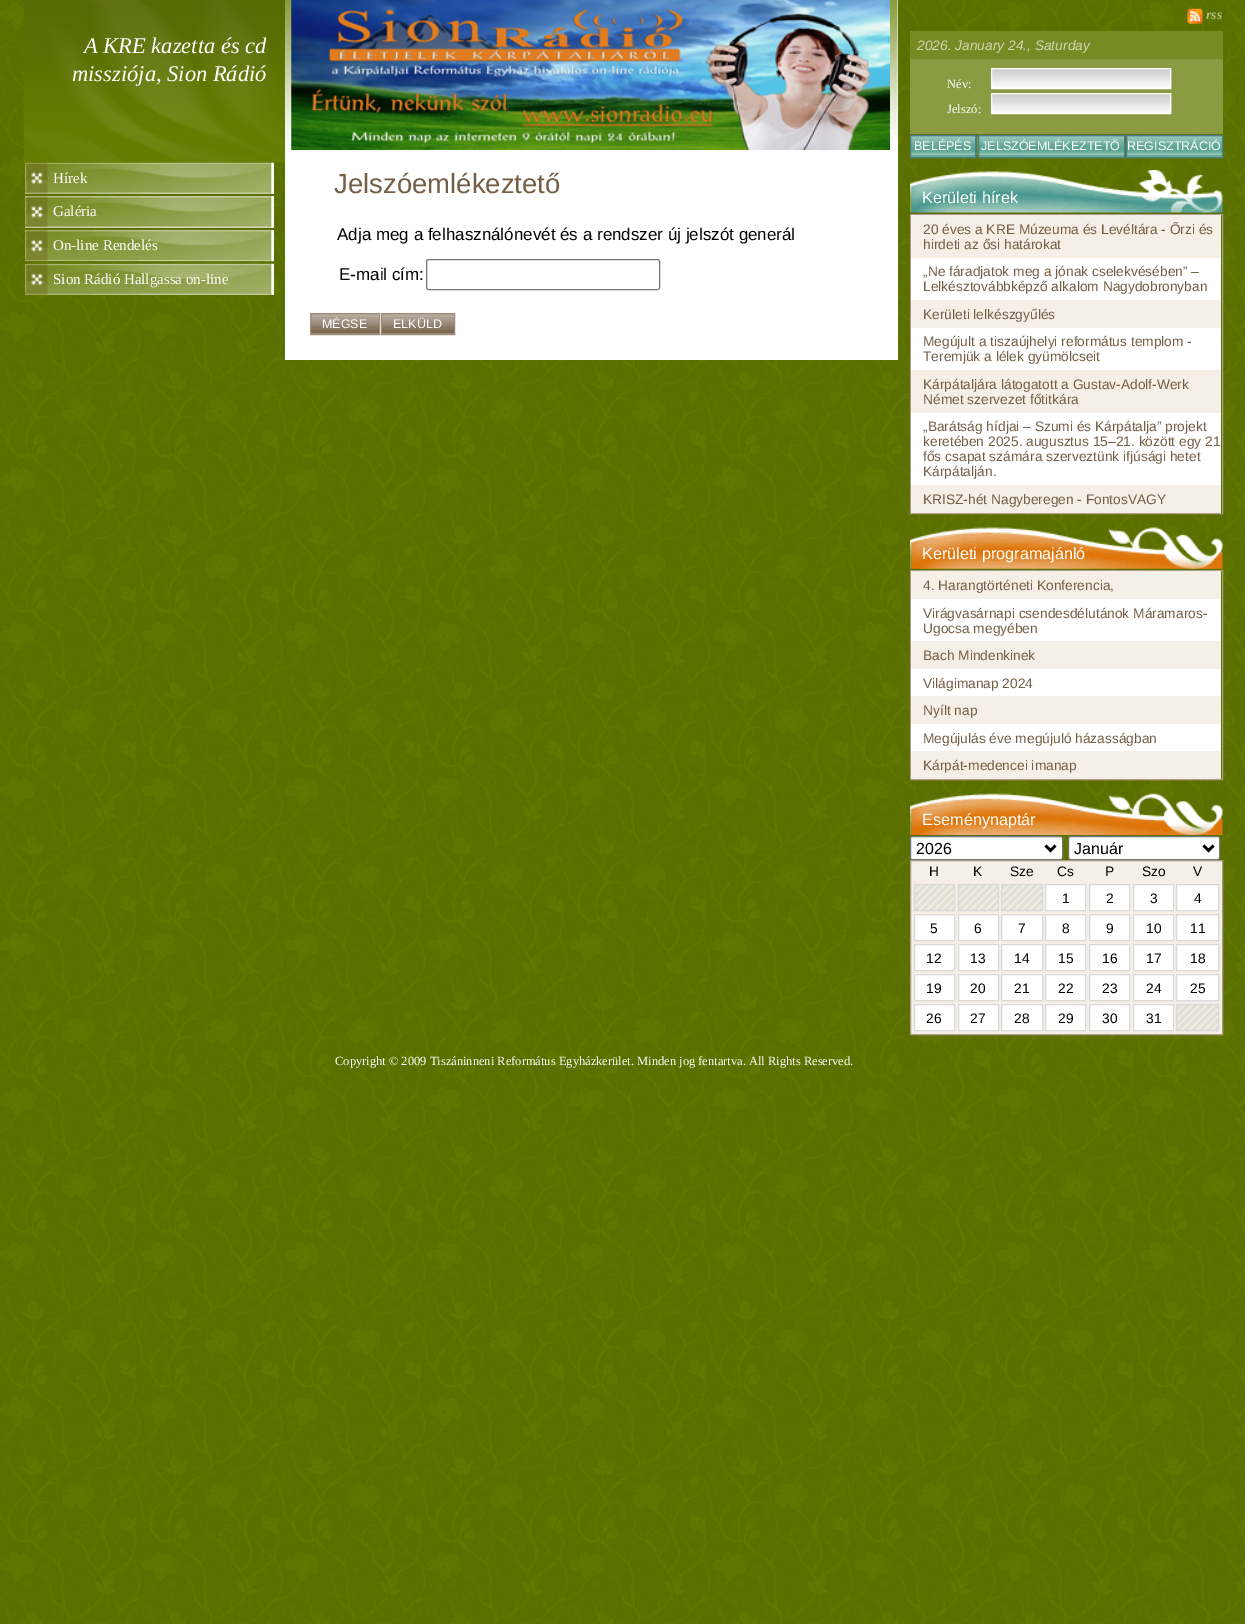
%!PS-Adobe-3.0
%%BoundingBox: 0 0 1245 1624
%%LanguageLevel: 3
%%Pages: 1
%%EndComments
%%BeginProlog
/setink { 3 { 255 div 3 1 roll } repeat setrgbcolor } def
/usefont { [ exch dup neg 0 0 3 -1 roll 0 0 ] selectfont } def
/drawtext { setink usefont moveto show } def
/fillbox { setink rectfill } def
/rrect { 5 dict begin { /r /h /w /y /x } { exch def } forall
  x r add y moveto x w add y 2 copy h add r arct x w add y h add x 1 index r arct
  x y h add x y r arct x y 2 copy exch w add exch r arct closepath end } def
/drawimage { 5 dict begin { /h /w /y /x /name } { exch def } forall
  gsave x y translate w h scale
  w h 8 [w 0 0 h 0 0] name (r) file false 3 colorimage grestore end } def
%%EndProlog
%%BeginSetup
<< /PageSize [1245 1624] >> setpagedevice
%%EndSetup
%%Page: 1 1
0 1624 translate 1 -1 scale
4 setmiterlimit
0 0 1245 1624 255 255 255 fillbox
(assets/img1.rgb) 0 0 1245 1624 drawimage
25 163 249 31 245 239 231 fillbox
(assets/img3.rgb) 25 162 249 32 drawimage
(assets/img2.rgb) 23 0 262 163 drawimage
(A KRE kazetta és cd) 84 53 /LiberationSerif-Italic 22.5 255 255 255 drawtext
(missziója, Sion Rádió) 72 81 /LiberationSerif-Italic 22.5 255 255 255 drawtext
(Hírek) 53 183 /LiberationSerif-Regular 15 255 255 255 drawtext
25 196 249 32 245 239 231 fillbox
(assets/img4.rgb) 25 196 249 32 drawimage
(Galéria) 53 216 /LiberationSerif-Regular 15 255 255 255 drawtext
(assets/img5.rgb) 25 230 249 32 drawimage
(On-line Rendelés) 53 250 /LiberationSerif-Regular 15 255 255 255 drawtext
(assets/img6.rgb) 25 263 249 32 drawimage
(Sion Rádió Hallgassa on-line) 53 284 /LiberationSerif-Regular 15 255 255 255 drawtext
285 0 613 360 255 255 255 fillbox
(assets/img7.rgb) 285 0 613 145 drawimage
(assets/img8.rgb) 291 0 599 150 drawimage
(Jelszóemlékeztető) 334 193 /LiberationSans-Regular 27.5 115 94 70 drawtext
(Adja meg a felhasználónevét és a rendszer új jelszót generál) 337 240 /LiberationSans-Regular 17 0 0 0 drawtext
(E-mail cím:) 339 280 /LiberationSans-Regular 17 0 0 0 drawtext
118 118 118 setink
426.5 259.5 233 30 2 rrect stroke
(assets/img9.rgb) 311 314 68 20 drawimage
157 139 119 setink
310.5 313.5 69 21 rectstroke
(MÉGSE) 322 328 /LiberationSans-Regular 12.5 255 255 255 drawtext
(assets/img10.rgb) 382 314 72 20 drawimage
157 139 119 setink
381.5 313.5 73 21 rectstroke
(ELKÜLD) 393 328 /LiberationSans-Regular 12.5 255 255 255 drawtext
(assets/img11.rgb) 1187 8 16 16 drawimage
(rss) 1206 19 /LiberationSerif-BoldItalic 13.75 178 190 128 drawtext
910 31 313 28 119 138 35 fillbox
(2026. January 24., Saturday) 917 50 /LiberationSans-Italic 13.75 209 215 180 drawtext
910 59 313 75 138 155 66 fillbox
(Név:) 947 88 /LiberationSerif-Regular 12.5 255 255 255 drawtext
(assets/img12.rgb) 992 68 180 21 drawimage
991.5 68.5 179 20 rectstroke
(Jelszó:) 947 113 /LiberationSerif-Regular 12.5 255 255 255 drawtext
(assets/img12.rgb) 992 93 180 21 drawimage
991.5 93.5 179 20 rectstroke
911 136 64 21 100 170 151 fillbox
(assets/img13.rgb) 911 136 66 19 drawimage
77 124 138 setink
910.5 135.5 65 22 rectstroke
(BELÉPÉS) 914 150 /LiberationSans-Regular 12.5 255 255 255 drawtext
979 136 145 21 100 170 151 fillbox
(assets/img14.rgb) 977 136 147 19 drawimage
77 124 138 setink
978.5 135.5 146 22 rectstroke
(JELSZÓEMLÉKEZTETŐ) 981 150 /LiberationSans-Regular 12.5 255 255 255 drawtext
1127 136 95 21 100 170 151 fillbox
(assets/img15.rgb) 1127 136 95 19 drawimage
77 124 138 setink
1126.5 135.5 96 22 rectstroke
(REGISZTRÁCIÓ) 1127 150 /LiberationSans-Regular 12.5 255 255 255 drawtext
(assets/img16.rgb) 910 170 313 43 drawimage
(Kerületi hírek) 922 203 /LiberationSans-Regular 16.25 255 255 255 drawtext
172 156 136 setink
910.5 214.5 312 299 rectstroke
911 215 310 43 245 239 231 fillbox
(20 éves a KRE Múzeuma és Levéltára - Őrzi és) 923 234 /LiberationSans-Regular 13.75 115 94 70 drawtext
(hirdeti az ősi határokat) 923 249 /LiberationSans-Regular 13.75 115 94 70 drawtext
911 258 310 42 255 255 255 fillbox
(„Ne fáradjatok meg a jónak cselekvésében” –) 923 276 /LiberationSans-Regular 13.75 115 94 70 drawtext
(Lelkésztovábbképző alkalom Nagydobronyban) 923 291 /LiberationSans-Regular 13.75 115 94 70 drawtext
911 300 310 28 245 239 231 fillbox
(Kerületi lelkészgyűlés) 923 319 /LiberationSans-Regular 13.75 115 94 70 drawtext
911 328 310 42 255 255 255 fillbox
(Megújult a tiszaújhelyi református templom -) 923 346 /LiberationSans-Regular 13.75 115 94 70 drawtext
(Teremjük a lélek gyümölcseit) 923 361 /LiberationSans-Regular 13.75 115 94 70 drawtext
911 370 310 43 245 239 231 fillbox
(Kárpátaljára látogatott a Gustav-Adolf-Werk) 923 389 /LiberationSans-Regular 13.75 115 94 70 drawtext
(Német szervezet főtitkára) 923 404 /LiberationSans-Regular 13.75 115 94 70 drawtext
911 413 310 72 255 255 255 fillbox
(„Barátság hídjai – Szumi és Kárpátalja” projekt) 923 431 /LiberationSans-Regular 13.75 115 94 70 drawtext
(keretében 2025. augusztus 15–21. között egy 21) 923 446 /LiberationSans-Regular 13.75 115 94 70 drawtext
(fős csapat számára szerveztünk ifjúsági hetet) 923 461 /LiberationSans-Regular 13.75 115 94 70 drawtext
(Kárpátalján.) 923 476 /LiberationSans-Regular 13.75 115 94 70 drawtext
911 485 310 28 245 239 231 fillbox
(KRISZ-hét Nagyberegen - FontosVAGY) 923 504 /LiberationSans-Regular 13.75 115 94 70 drawtext
(assets/img17.rgb) 910 527 313 42 drawimage
(Kerületi programajánló) 922 559 /LiberationSans-Regular 16.25 255 255 255 drawtext
172 156 136 setink
910.5 570.5 312 209 rectstroke
911 571 310 28 245 239 231 fillbox
(4. Harangtörténeti Konferencia,) 923 590 /LiberationSans-Regular 13.75 115 94 70 drawtext
911 599 310 42 255 255 255 fillbox
(Virágvasárnapi csendesdélutánok Máramaros-) 923 618 /LiberationSans-Regular 13.75 115 94 70 drawtext
(Ugocsa megyében) 923 633 /LiberationSans-Regular 13.75 115 94 70 drawtext
911 641 310 28 245 239 231 fillbox
(Bach Mindenkinek) 923 660 /LiberationSans-Regular 13.75 115 94 70 drawtext
911 669 310 27 255 255 255 fillbox
(Világimanap 2024) 923 688 /LiberationSans-Regular 13.75 115 94 70 drawtext
911 696 310 28 245 239 231 fillbox
(Nyílt nap) 923 715 /LiberationSans-Regular 13.75 115 94 70 drawtext
911 724 310 27 255 255 255 fillbox
(Megújulás éve megújuló házasságban) 923 743 /LiberationSans-Regular 13.75 115 94 70 drawtext
911 751 310 28 245 239 231 fillbox
(Kárpát-medencei imanap) 923 770 /LiberationSans-Regular 13.75 115 94 70 drawtext
(assets/img18.rgb) 910 793 313 42 drawimage
(Eseménynaptár) 922 825 /LiberationSans-Regular 16.25 255 255 255 drawtext
910.5 836.5 152 23 2 rrect gsave fill grestore
118 118 118 setink
stroke
0 0 0 setink
2.5 setlinewidth
1045.5 845.5 moveto 1050.5 850.5 lineto 1055.5 845.5 lineto stroke
(2026) 916 854 /LiberationSans-Regular 16 0 0 0 drawtext
255 255 255 setink
1068.5 836.5 151 23 2 rrect gsave fill grestore
118 118 118 setink
1 setlinewidth
stroke
0 0 0 setink
2.5 setlinewidth
1203.5 845.5 moveto 1208.5 850.5 lineto 1213.5 845.5 lineto stroke
(Január) 1074 854 /LiberationSans-Regular 16 0 0 0 drawtext
245 239 231 setink
910.5 860.5 moveto 1222.5 860.5 lineto 1222.5 1034.5 lineto 910.5 1034.5 lineto closepath gsave fill grestore
172 156 136 setink
1 setlinewidth
stroke
(H) 929 876 /LiberationSans-Regular 13.75 0 0 0 drawtext
(K) 973 876 /LiberationSans-Regular 13.75 0 0 0 drawtext
(Sze) 1010 876 /LiberationSans-Regular 13.75 0 0 0 drawtext
(Cs) 1057 876 /LiberationSans-Regular 13.75 0 0 0 drawtext
(P) 1105 876 /LiberationSans-Regular 13.75 0 0 0 drawtext
(Szo) 1142 876 /LiberationSans-Regular 13.75 0 0 0 drawtext
(V) 1193 876 /LiberationSans-Regular 13.75 0 0 0 drawtext
(assets/img19.rgb) 913 883 42 29 drawimage
217 217 217 setink
914.5 884.5 40 26 rectstroke
(assets/img20.rgb) 957 883 42 29 drawimage
958.5 884.5 40 26 rectstroke
(assets/img21.rgb) 1001 883 42 29 drawimage
1001.5 884.5 41 26 rectstroke
255 255 255 setink
1045.5 884.5 moveto 1085.5 884.5 lineto 1085.5 910.5 lineto 1045.5 910.5 lineto closepath gsave fill grestore
217 217 217 setink
stroke
(1) 1062 903 /LiberationSans-Regular 13.75 0 0 0 drawtext
255 255 255 setink
1089.5 884.5 moveto 1129.5 884.5 lineto 1129.5 910.5 lineto 1089.5 910.5 lineto closepath gsave fill grestore
217 217 217 setink
stroke
(2) 1106 903 /LiberationSans-Regular 13.75 0 0 0 drawtext
255 255 255 setink
1133.5 884.5 moveto 1173.5 884.5 lineto 1173.5 910.5 lineto 1133.5 910.5 lineto closepath gsave fill grestore
217 217 217 setink
stroke
(3) 1150 903 /LiberationSans-Regular 13.75 0 0 0 drawtext
255 255 255 setink
1176.5 884.5 moveto 1218.5 884.5 lineto 1218.5 910.5 lineto 1176.5 910.5 lineto closepath gsave fill grestore
217 217 217 setink
stroke
(4) 1194 903 /LiberationSans-Regular 13.75 0 0 0 drawtext
255 255 255 setink
914.5 914.5 moveto 954.5 914.5 lineto 954.5 940.5 lineto 914.5 940.5 lineto closepath gsave fill grestore
217 217 217 setink
stroke
(5) 930 933 /LiberationSans-Regular 13.75 0 0 0 drawtext
255 255 255 setink
958.5 914.5 moveto 998.5 914.5 lineto 998.5 940.5 lineto 958.5 940.5 lineto closepath gsave fill grestore
217 217 217 setink
stroke
(6) 974 933 /LiberationSans-Regular 13.75 0 0 0 drawtext
255 255 255 setink
1001.5 914.5 moveto 1042.5 914.5 lineto 1042.5 940.5 lineto 1001.5 940.5 lineto closepath gsave fill grestore
217 217 217 setink
stroke
(7) 1018 933 /LiberationSans-Regular 13.75 0 0 0 drawtext
255 255 255 setink
1045.5 914.5 moveto 1085.5 914.5 lineto 1085.5 940.5 lineto 1045.5 940.5 lineto closepath gsave fill grestore
217 217 217 setink
stroke
(8) 1062 933 /LiberationSans-Regular 13.75 0 0 0 drawtext
255 255 255 setink
1089.5 914.5 moveto 1129.5 914.5 lineto 1129.5 940.5 lineto 1089.5 940.5 lineto closepath gsave fill grestore
217 217 217 setink
stroke
(9) 1106 933 /LiberationSans-Regular 13.75 0 0 0 drawtext
255 255 255 setink
1133.5 914.5 moveto 1173.5 914.5 lineto 1173.5 940.5 lineto 1133.5 940.5 lineto closepath gsave fill grestore
217 217 217 setink
stroke
(10) 1146 933 /LiberationSans-Regular 13.75 0 0 0 drawtext
255 255 255 setink
1176.5 914.5 moveto 1218.5 914.5 lineto 1218.5 940.5 lineto 1176.5 940.5 lineto closepath gsave fill grestore
217 217 217 setink
stroke
(11) 1190 933 /LiberationSans-Regular 13.75 0 0 0 drawtext
255 255 255 setink
914.5 944.5 moveto 954.5 944.5 lineto 954.5 970.5 lineto 914.5 970.5 lineto closepath gsave fill grestore
217 217 217 setink
stroke
(12) 926 963 /LiberationSans-Regular 13.75 0 0 0 drawtext
255 255 255 setink
958.5 944.5 moveto 998.5 944.5 lineto 998.5 970.5 lineto 958.5 970.5 lineto closepath gsave fill grestore
217 217 217 setink
stroke
(13) 970 963 /LiberationSans-Regular 13.75 0 0 0 drawtext
255 255 255 setink
1001.5 944.5 moveto 1042.5 944.5 lineto 1042.5 970.5 lineto 1001.5 970.5 lineto closepath gsave fill grestore
217 217 217 setink
stroke
(14) 1014 963 /LiberationSans-Regular 13.75 0 0 0 drawtext
255 255 255 setink
1045.5 944.5 moveto 1085.5 944.5 lineto 1085.5 970.5 lineto 1045.5 970.5 lineto closepath gsave fill grestore
217 217 217 setink
stroke
(15) 1058 963 /LiberationSans-Regular 13.75 0 0 0 drawtext
255 255 255 setink
1089.5 944.5 moveto 1129.5 944.5 lineto 1129.5 970.5 lineto 1089.5 970.5 lineto closepath gsave fill grestore
217 217 217 setink
stroke
(16) 1102 963 /LiberationSans-Regular 13.75 0 0 0 drawtext
255 255 255 setink
1133.5 944.5 moveto 1173.5 944.5 lineto 1173.5 970.5 lineto 1133.5 970.5 lineto closepath gsave fill grestore
217 217 217 setink
stroke
(17) 1146 963 /LiberationSans-Regular 13.75 0 0 0 drawtext
255 255 255 setink
1176.5 944.5 moveto 1218.5 944.5 lineto 1218.5 970.5 lineto 1176.5 970.5 lineto closepath gsave fill grestore
217 217 217 setink
stroke
(18) 1190 963 /LiberationSans-Regular 13.75 0 0 0 drawtext
255 255 255 setink
914.5 974.5 moveto 954.5 974.5 lineto 954.5 1000.5 lineto 914.5 1000.5 lineto closepath gsave fill grestore
217 217 217 setink
stroke
(19) 926 993 /LiberationSans-Regular 13.75 0 0 0 drawtext
255 255 255 setink
958.5 974.5 moveto 998.5 974.5 lineto 998.5 1000.5 lineto 958.5 1000.5 lineto closepath gsave fill grestore
217 217 217 setink
stroke
(20) 970 993 /LiberationSans-Regular 13.75 0 0 0 drawtext
255 255 255 setink
1001.5 974.5 moveto 1042.5 974.5 lineto 1042.5 1000.5 lineto 1001.5 1000.5 lineto closepath gsave fill grestore
217 217 217 setink
stroke
(21) 1014 993 /LiberationSans-Regular 13.75 0 0 0 drawtext
255 255 255 setink
1045.5 974.5 moveto 1085.5 974.5 lineto 1085.5 1000.5 lineto 1045.5 1000.5 lineto closepath gsave fill grestore
217 217 217 setink
stroke
(22) 1058 993 /LiberationSans-Regular 13.75 0 0 0 drawtext
255 255 255 setink
1089.5 974.5 moveto 1129.5 974.5 lineto 1129.5 1000.5 lineto 1089.5 1000.5 lineto closepath gsave fill grestore
217 217 217 setink
stroke
(23) 1102 993 /LiberationSans-Regular 13.75 0 0 0 drawtext
255 255 255 setink
1133.5 974.5 moveto 1173.5 974.5 lineto 1173.5 1000.5 lineto 1133.5 1000.5 lineto closepath gsave fill grestore
217 217 217 setink
stroke
(24) 1146 993 /LiberationSans-Regular 13.75 0 0 0 drawtext
255 255 255 setink
1176.5 974.5 moveto 1218.5 974.5 lineto 1218.5 1000.5 lineto 1176.5 1000.5 lineto closepath gsave fill grestore
217 217 217 setink
stroke
(25) 1190 993 /LiberationSans-Regular 13.75 0 0 0 drawtext
255 255 255 setink
914.5 1004.5 moveto 954.5 1004.5 lineto 954.5 1030.5 lineto 914.5 1030.5 lineto closepath gsave fill grestore
217 217 217 setink
stroke
(26) 926 1023 /LiberationSans-Regular 13.75 0 0 0 drawtext
255 255 255 setink
958.5 1004.5 moveto 998.5 1004.5 lineto 998.5 1030.5 lineto 958.5 1030.5 lineto closepath gsave fill grestore
217 217 217 setink
stroke
(27) 970 1023 /LiberationSans-Regular 13.75 0 0 0 drawtext
255 255 255 setink
1001.5 1004.5 moveto 1042.5 1004.5 lineto 1042.5 1030.5 lineto 1001.5 1030.5 lineto closepath gsave fill grestore
217 217 217 setink
stroke
(28) 1014 1023 /LiberationSans-Regular 13.75 0 0 0 drawtext
255 255 255 setink
1045.5 1004.5 moveto 1085.5 1004.5 lineto 1085.5 1030.5 lineto 1045.5 1030.5 lineto closepath gsave fill grestore
217 217 217 setink
stroke
(29) 1058 1023 /LiberationSans-Regular 13.75 0 0 0 drawtext
255 255 255 setink
1089.5 1004.5 moveto 1129.5 1004.5 lineto 1129.5 1030.5 lineto 1089.5 1030.5 lineto closepath gsave fill grestore
217 217 217 setink
stroke
(30) 1102 1023 /LiberationSans-Regular 13.75 0 0 0 drawtext
255 255 255 setink
1133.5 1004.5 moveto 1173.5 1004.5 lineto 1173.5 1030.5 lineto 1133.5 1030.5 lineto closepath gsave fill grestore
217 217 217 setink
stroke
(31) 1146 1023 /LiberationSans-Regular 13.75 0 0 0 drawtext
(assets/img22.rgb) 1176 1003 43 29 drawimage
217 217 217 setink
1176.5 1004.5 42 26 rectstroke
(Copyright © 2009 Tiszáninneni Református Egyházkerület. Minden jog fentartva. All Rights Reserved.) 335 1065 /LiberationSerif-Regular 12.5 255 255 255 drawtext
showpage
%%EOF
